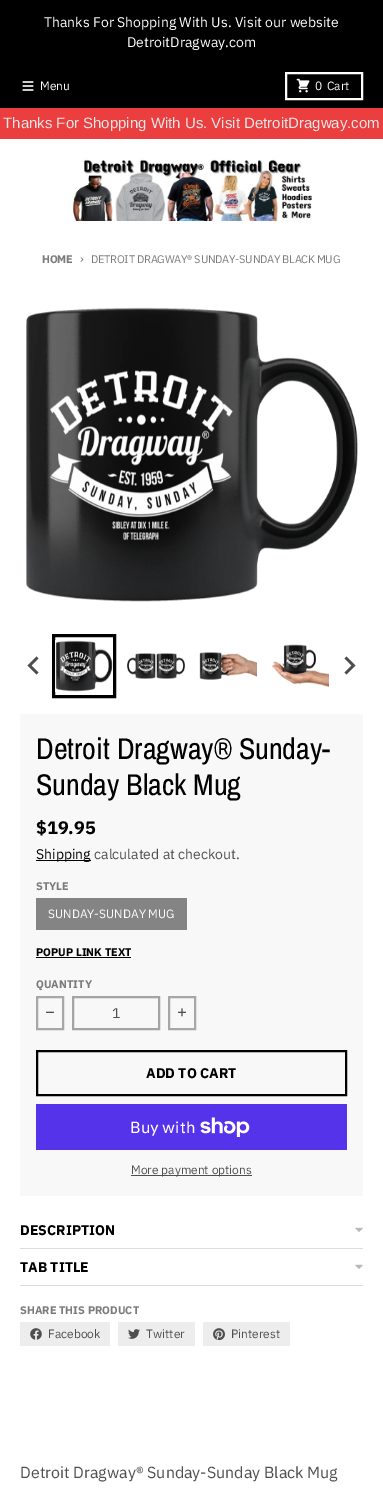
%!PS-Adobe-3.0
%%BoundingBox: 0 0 383 1502
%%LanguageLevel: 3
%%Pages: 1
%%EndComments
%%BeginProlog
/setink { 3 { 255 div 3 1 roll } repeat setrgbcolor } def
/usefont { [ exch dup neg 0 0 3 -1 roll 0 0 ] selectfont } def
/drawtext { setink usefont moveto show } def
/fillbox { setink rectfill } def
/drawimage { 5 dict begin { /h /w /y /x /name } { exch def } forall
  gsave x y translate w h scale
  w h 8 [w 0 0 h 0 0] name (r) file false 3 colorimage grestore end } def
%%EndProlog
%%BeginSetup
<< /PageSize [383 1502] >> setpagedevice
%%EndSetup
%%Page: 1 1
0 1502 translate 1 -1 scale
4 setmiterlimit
0 0 383 1502 0 0 0 fillbox
(Thanks For Shopping With Us. Visit our website) 44 27 /IBMPlexSans-Regular 14 255 255 255 drawtext
(DetroitDragway.com) 127 47 /IBMPlexSans-Regular 14 255 255 255 drawtext
(assets/img1.rgb) 22 81 12 10 drawimage
(Menu) 40 90 /IBMPlexSans-Regular 12 255 255 255 drawtext
2 setlinewidth
286 73 76 26 rectstroke
(assets/img2.rgb) 296 78 14 15 drawimage
(0) 315 90 /IBMPlexSans-Regular 12 255 255 255 drawtext
(Cart) 327 90 /IBMPlexSans-Regular 12 255 255 255 drawtext
0 108 383 31 235 62 62 fillbox
(Thanks For Shopping With Us. Visit DetroitDragway.com) 3 128 /LiberationSans-Regular 15 231 231 231 drawtext
0 139 383 1363 255 255 255 fillbox
(assets/img3.rgb) 73 159 239 62 drawimage
/IBMPlexSans-Bold 11 usefont
123 123 123 setink
42 263 moveto -0.3 0 (HOME) ashow
/IBMPlexSans-Regular 12 usefont
80 263 moveto -0.3 0 (›) ashow
/IBMPlexSans-Regular 11 usefont
91 263 moveto -0.3 0 (DETROIT DRAGWAY® SUNDAY-SUNDAY BLACK MUG) ashow
(assets/img4.rgb) 26 307 332 295 drawimage
0 0 0 setink
3 setlinewidth
53.5 635.5 61 61 rectstroke
(assets/img5.rgb) 55 640 58 52 drawimage
(assets/img6.rgb) 127 653 58 26 drawimage
(assets/img7.rgb) 199 652 58 28 drawimage
(assets/img8.rgb) 271 644 58 44 drawimage
77 77 77 setink
36.5 656.5 moveto 38.5 658.5 lineto 31.5 665.5 lineto 38.5 672.5 lineto 36.5 674.5 lineto 27.5 665.5 lineto closepath fill
346.5 656.5 moveto 344.5 658.5 lineto 351.5 665.5 lineto 344.5 672.5 lineto 346.5 674.5 lineto 355.5 665.5 lineto closepath fill
20 714 343 482 248 248 248 fillbox
(Detroit Dragway® Sunday-) 36 759 /ArchivoNarrow-Regular 30 0 0 0 drawtext
(Sunday Black Mug) 36 795 /ArchivoNarrow-Regular 30 0 0 0 drawtext
($19.95) 36 834 /IBMPlexSans-Bold 18 0 0 0 drawtext
36 860 55 1 0 0 0 fillbox
(Shipping) 36 859 /IBMPlexSans-Regular 14 0 0 0 drawtext
(calculated at checkout.) 94 859 /IBMPlexSans-Regular 14 79 79 79 drawtext
(STYLE) 36 890 /IBMPlexSans-Bold 11 123 123 123 drawtext
36 898 151 32 132 132 132 fillbox
(SUNDAY-SUNDAY MUG) 48 918 /IBMPlexSans-Regular 12 255 255 255 drawtext
(POPUP LINK TEXT) 36 956 /IBMPlexSans-Bold 11 0 0 0 drawtext
36 957 95 1 0 0 0 fillbox
(QUANTITY) 36 988 /IBMPlexSans-Bold 11 123 123 123 drawtext
167 167 167 setink
2 setlinewidth
37 997 26 32 rectstroke
(assets/img9.rgb) 46 1011 8 2 drawimage
164 164 164 setink
73 997 86 32 rectstroke
(1) 112 1018 /IBMPlexSans-Regular 14 79 79 79 drawtext
167 167 167 setink
169 997 26 32 rectstroke
(assets/img10.rgb) 178 1008 8 9 drawimage
0 0 0 setink
37 1051 309 44 rectstroke
(ADD TO CART) 146 1078 /IBMPlexSans-Bold 14 0 0 0 drawtext
36 1104 311 46 84 51 235 fillbox
(Buy with) 130 1133 /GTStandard-Regular 16 255 255 255 drawtext
(assets/img11.rgb) 200 1117 50 20 drawimage
131 1175 121 1 79 79 79 fillbox
(More payment options) 131 1174 /IBMPlexSans-Regular 12 79 79 79 drawtext
20 1248 343 1 220 220 220 fillbox
(DESCRIPTION) 20 1235 /IBMPlexSans-Bold 14 0 0 0 drawtext
(assets/img12.rgb) 355 1227 8 5 drawimage
20 1285 343 1 220 220 220 fillbox
(TAB TITLE) 20 1272 /IBMPlexSans-Bold 14 0 0 0 drawtext
(assets/img12.rgb) 355 1264 8 5 drawimage
(SHARE THIS PRODUCT) 20 1314 /IBMPlexSans-Bold 11 123 123 123 drawtext
20 1322 90 24 237 237 237 fillbox
(assets/img13.rgb) 30 1328 12 12 drawimage
(Facebook) 48 1338 /IBMPlexSans-Regular 12 79 79 79 drawtext
118 1322 77 24 237 237 237 fillbox
(assets/img14.rgb) 128 1329 12 10 drawimage
(Twitter) 146 1338 /IBMPlexSans-Regular 12 79 79 79 drawtext
203 1322 87 24 237 237 237 fillbox
(assets/img15.rgb) 213 1328 12 12 drawimage
(Pinterest) 231 1338 /IBMPlexSans-Regular 12 79 79 79 drawtext
(Detroit Dragway® Sunday-Sunday Black Mug) 20 1478 /IBMPlexSans-Regular 16 79 79 79 drawtext
showpage
%%EOF
